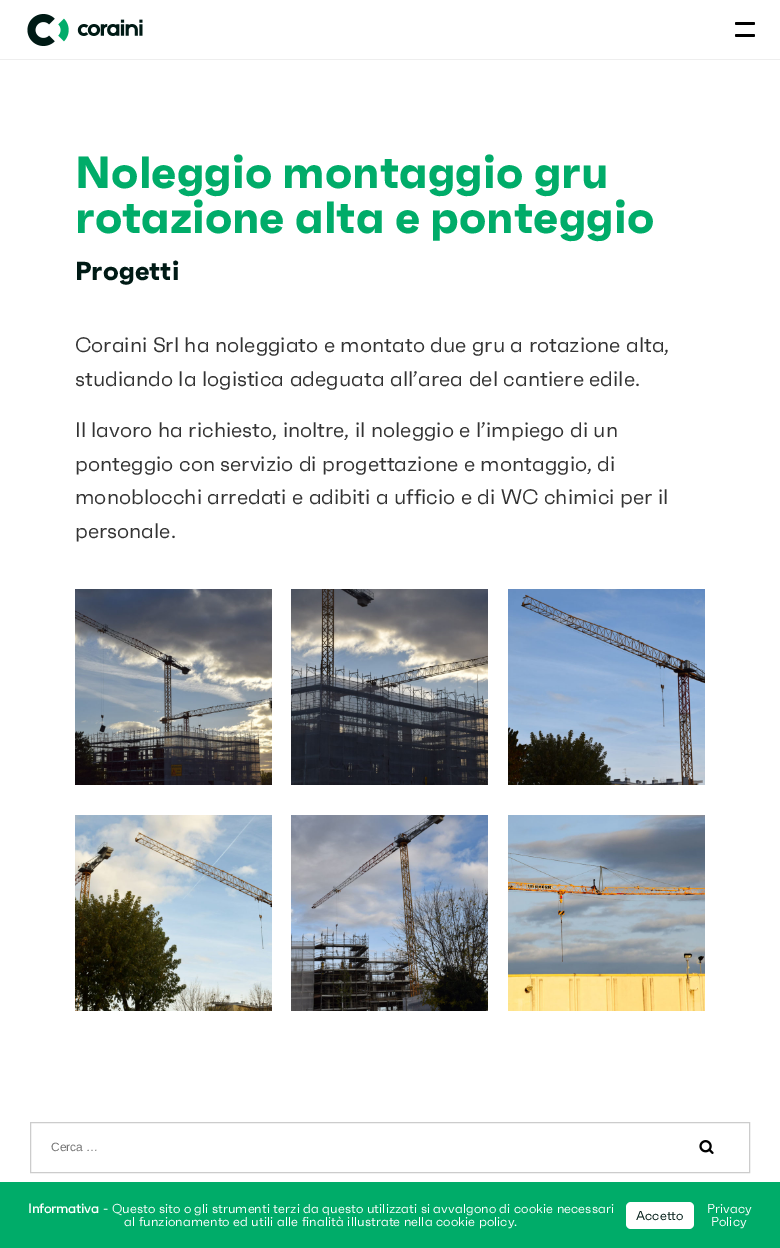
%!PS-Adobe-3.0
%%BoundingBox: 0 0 780 1248
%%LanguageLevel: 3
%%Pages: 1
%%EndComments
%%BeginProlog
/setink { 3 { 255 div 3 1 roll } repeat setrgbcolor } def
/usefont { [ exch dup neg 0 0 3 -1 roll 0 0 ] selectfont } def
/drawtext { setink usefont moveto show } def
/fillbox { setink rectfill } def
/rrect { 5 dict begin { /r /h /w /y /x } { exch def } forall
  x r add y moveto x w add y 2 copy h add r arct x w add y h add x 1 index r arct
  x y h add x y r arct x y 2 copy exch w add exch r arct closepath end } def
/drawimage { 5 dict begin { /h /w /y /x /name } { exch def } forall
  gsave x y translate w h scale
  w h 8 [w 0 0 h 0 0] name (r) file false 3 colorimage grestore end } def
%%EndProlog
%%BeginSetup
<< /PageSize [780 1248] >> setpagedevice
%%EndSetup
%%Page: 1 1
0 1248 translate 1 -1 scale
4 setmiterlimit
0 0 780 1248 255 255 255 fillbox
0 59 780 1 238 238 238 fillbox
(assets/img1.rgb) 27 14 116 32 drawimage
0 0 0 setink
735 22 20 3 1.5 rrect fill
735 34 20 3 1.5 rrect fill
(Noleggio montaggio gru) 75 188 /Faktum-Bold 45 0 172 105 drawtext
(rotazione alta e ponteggio) 75 233 /Faktum-Bold 45 0 172 105 drawtext
(Progetti) 75 280 /Faktum-Bold 26 0 26 21 drawtext
(Coraini Srl ha noleggiato e montato due gru a rotazione alta,) 75 352 /Faktum-Regular 21 51 51 51 drawtext
(studiando la logistica adeguata all’area del cantiere edile.) 75 386 /Faktum-Regular 21 51 51 51 drawtext
(Il lavoro ha richiesto, inoltre, il noleggio e l’impiego di un) 75 437 /Faktum-Regular 21 51 51 51 drawtext
(ponteggio con servizio di progettazione e montaggio, di) 75 471 /Faktum-Regular 21 51 51 51 drawtext
(monoblocchi arredati e adibiti a ufficio e di WC chimici per il) 75 504 /Faktum-Regular 21 51 51 51 drawtext
(personale.) 75 538 /Faktum-Regular 21 51 51 51 drawtext
(assets/img2.rgb) 75 589 197 196 drawimage
(assets/img3.rgb) 291 589 197 196 drawimage
(assets/img4.rgb) 508 589 197 196 drawimage
(assets/img5.rgb) 75 815 197 196 drawimage
(assets/img6.rgb) 291 815 197 196 drawimage
(assets/img7.rgb) 508 815 197 196 drawimage
(assets/img8.rgb) 699 1140 15 14 drawimage
204 204 204 setink
30.5 1122.5 719 50 rectstroke
(Cerca …) 51 1151 /LiberationSans-Regular 12 117 117 117 drawtext
0 1182 780 66 0 172 105 fillbox
(Informativa) 28 1213 /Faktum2-Bold 13 255 255 255 drawtext
(- Questo sito o gli strumenti terzi da questo utilizzati si avvalgono di cookie necessari) 103 1213 /Faktum-Regular 13 255 255 255 drawtext
(al funzionamento ed utili alle finalità illustrate nella cookie policy.) 124 1226 /Faktum-Regular 13 255 255 255 drawtext
626 1202 68 27 5 rrect fill
(Accetto) 636 1220 /Faktum-Regular 13 0 26 21 drawtext
(Privacy) 707 1213 /Faktum-Regular 13 255 255 255 drawtext
(Policy) 711 1226 /Faktum-Regular 13 255 255 255 drawtext
showpage
%%EOF
